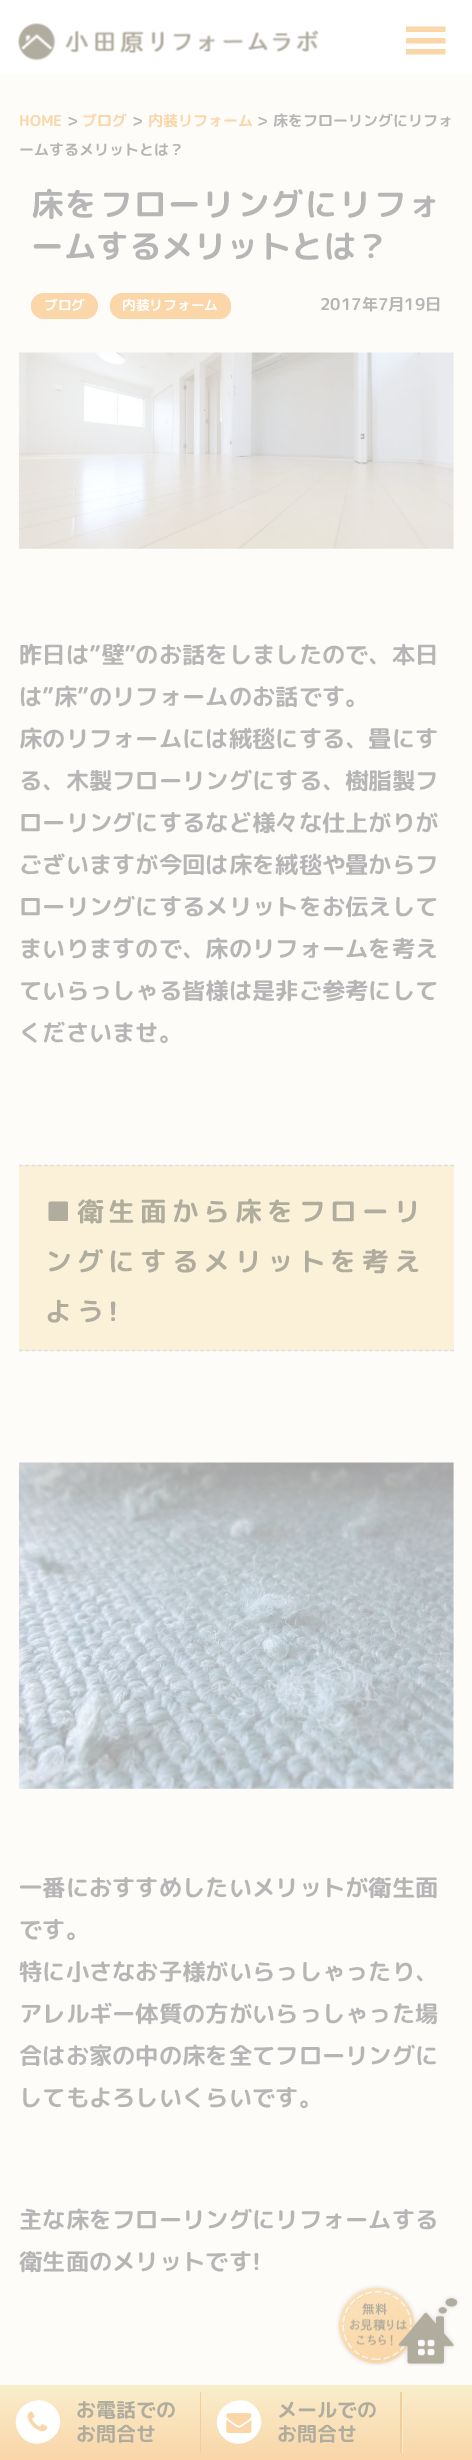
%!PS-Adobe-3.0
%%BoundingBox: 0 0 472 2460
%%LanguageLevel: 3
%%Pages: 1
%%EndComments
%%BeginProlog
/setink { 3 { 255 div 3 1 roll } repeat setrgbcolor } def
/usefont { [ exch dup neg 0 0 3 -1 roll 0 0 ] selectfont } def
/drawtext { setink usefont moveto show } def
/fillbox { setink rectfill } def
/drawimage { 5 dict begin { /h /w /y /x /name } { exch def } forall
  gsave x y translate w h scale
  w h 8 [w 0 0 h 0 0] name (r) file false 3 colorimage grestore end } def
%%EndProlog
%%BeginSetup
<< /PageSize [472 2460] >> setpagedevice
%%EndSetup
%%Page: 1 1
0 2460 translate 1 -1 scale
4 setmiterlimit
0 0 472 2460 253 252 249 fillbox
0 0 472 75 255 255 255 fillbox
(assets/img1.rgb) 18 23 38 38 drawimage
(assets/img2.rgb) 65 30 254 24 drawimage
250 214 168 setink
406 54.5 moveto 445.5 54.5 lineto 445.5 49 lineto 406 49 lineto closepath 406 26.5 moveto 406 32 lineto 445.5 32 lineto 445.5 26.5 lineto closepath 406 43.5 moveto 445.5 43.5 lineto 445.5 38 lineto 406 38 lineto closepath fill
(assets/img3.rgb) 336 2285 124 81 drawimage
(HOME) 19 126 /RoundedMplus1cBold-Bold 15 250 214 168 drawtext
(>) 67 126 /RoundedMplus1cBold-Bold 16.25 182 182 182 drawtext
(ブログ) 82 126 /RoundedMplus1cBold-Bold 15 250 214 168 drawtext
(>) 132 126 /RoundedMplus1cBold-Bold 16.25 182 182 182 drawtext
(内装リフォーム) 148 126 /RoundedMplus1cBold-Bold 15 250 214 168 drawtext
(>) 257 126 /RoundedMplus1cBold-Bold 16.25 182 182 182 drawtext
(床をフローリングにリフォ) 273 126 /RoundedMplus1cBold-Bold 15 182 182 182 drawtext
(ームするメリットとは？) 19 155 /RoundedMplus1cBold-Bold 15 182 182 182 drawtext
/RoundedMplus1cBold-Bold 32.5 usefont
31 216 moveto 1.75 0 (床をフローリングにリフォ) ashow
(ームするメリットとは？) 31 258 /RoundedMplus1cBold-Bold 32.5 182 182 182 drawtext
250 214 168 setink
44 293 moveto 85 293 lineto 92 293 98 299 98 306 curveto 98 307 lineto 97 314 92 319 85 319 curveto 44 319 lineto 37 319 31 313 31 307 curveto 31 305 lineto 31 299 37 293 44 293 curveto closepath fill
/RoundedMplus1cBold-Bold 13.75 usefont
255 255 255 setink
gsave 44 310 translate 0.1 rotate 0 0 moveto (ブログ) show grestore
250 214 168 setink
123 293 moveto 219 293 lineto 226 293 231 299 231 306 curveto 231 307 lineto 231 314 226 319 219 319 curveto 122 319 lineto 116 319 110 313 110 307 curveto 110 305 lineto 110 298 116 293 123 293 curveto closepath fill
255 255 255 setink
gsave 122 310 translate 0.1 rotate 0 0 moveto (内装リフォーム) show grestore
(2017年7月19日) 320 310 /RoundedMplus1cBold-Bold 16.25 182 182 182 drawtext
(assets/img4.rgb) 18 352 436 197 drawimage
(昨日は”壁”のお話をしましたので、本日) 19 663 /RoundedMplus1cBold-Bold 23.3 182 182 182 drawtext
(は”床”のリフォームのお話です。) 19 705 /RoundedMplus1cBold-Bold 23.3 182 182 182 drawtext
(床のリフォームには絨毯にする、畳にす) 19 747 /RoundedMplus1cBold-Bold 23.3 182 182 182 drawtext
(る、木製フローリングにする、樹脂製フ) 19 789 /RoundedMplus1cBold-Bold 23.3 182 182 182 drawtext
(ローリングにするなど様々な仕上がりが) 19 831 /RoundedMplus1cBold-Bold 23.3 182 182 182 drawtext
(ございますが今回は床を絨毯や畳からフ) 19 873 /RoundedMplus1cBold-Bold 23.3 182 182 182 drawtext
(ローリングにするメリットをお伝えして) 19 915 /RoundedMplus1cBold-Bold 23.3 182 182 182 drawtext
(まいりますので、床のリフォームを考え) 19 957 /RoundedMplus1cBold-Bold 23.3 182 182 182 drawtext
(ていらっしゃる皆様は是非ご参考にして) 19 999 /RoundedMplus1cBold-Bold 23.3 182 182 182 drawtext
(くださいませ。) 19 1041 /RoundedMplus1cBold-Bold 23.3 182 182 182 drawtext
19 1165 435 186 251 241 217 fillbox
223 223 223 setink
1.2 setlinewidth
[3.75 2.5] 0 setdash
19 1165.5 moveto 454 1165.5 lineto stroke
19 1350.5 moveto 454 1350.5 lineto stroke
/RoundedMplus1cBold-Bold 26.7 usefont
176 172 158 setink
45 1221 moveto 5 0 (■衛生面から床をフローリ) ashow
45 1271 moveto 5 0 (ングにするメリットを考え) ashow
45 1321 moveto 5 0 (よう!) ashow
(assets/img5.rgb) 18 1462 436 327 drawimage
(一番におすすめしたいメリットが衛生面) 19 1896 /RoundedMplus1cBold-Bold 23.3 182 182 182 drawtext
(です。) 19 1938 /RoundedMplus1cBold-Bold 23.3 182 182 182 drawtext
(特に小さなお子様がいらっしゃったり、) 19 1980 /RoundedMplus1cBold-Bold 23.3 182 182 182 drawtext
(アレルギー体質の方がいらっしゃった場) 19 2022 /RoundedMplus1cBold-Bold 23.3 182 182 182 drawtext
(合はお家の中の床を全てフローリングに) 19 2064 /RoundedMplus1cBold-Bold 23.3 182 182 182 drawtext
(してもよろしいくらいです。) 19 2106 /RoundedMplus1cBold-Bold 23.3 182 182 182 drawtext
(主な床をフローリングにリフォームする) 19 2228 /RoundedMplus1cBold-Bold 23.3 182 182 182 drawtext
(衛生面のメリットです!) 19 2270 /RoundedMplus1cBold-Bold 23.3 182 182 182 drawtext
gsave 0 2385 moveto 472 2385 lineto 472 2460 lineto 0 2460 lineto closepath clip newpath
<< /ShadingType 2 /ColorSpace /DeviceRGB /Coords [236 2385 236 2460] /Extend [true true] /Function << /FunctionType 3 /Domain [0 1] /Functions [<< /FunctionType 2 /Domain [0 1] /C0 [0.976 0.933 0.796] /C1 [0.976 0.933 0.796] /N 1 >> << /FunctionType 2 /Domain [0 1] /C0 [0.976 0.933 0.796] /C1 [0.98 0.839 0.659] /N 1 >>] /Bounds [0.01] /Encode [0 1 0 1] >> >> shfill grestore
255 255 255 setink
57 2411 moveto 71 2436 33 2457 19 2433 curveto 5 2408 42 2387 57 2411 curveto closepath fill
(assets/img6.rgb) 27 2411 21 21 drawimage
/RoundedMplus1cBold-Bold 20 usefont
176 172 158 setink
gsave 76 2417 translate 0.1 rotate 0 0 moveto (お電話での) show grestore
gsave 76 2441 translate 0.1 rotate 0 0 moveto (お問合せ) show grestore
200 2392 1 61 242 206 158 fillbox
255 255 255 setink
258 2411 moveto 272 2436 235 2457 220 2433 curveto 206 2408 244 2387 258 2411 curveto closepath fill
(assets/img7.rgb) 226 2413 26 20 drawimage
176 172 158 setink
gsave 277 2417 translate 0.1 rotate 0 0 moveto (メールでの) show grestore
gsave 277 2441 translate 0.1 rotate 0 0 moveto (お問合せ) show grestore
400 2392 2 61 242 206 158 fillbox
402 2392 1 61 249 238 203 fillbox
showpage
%%EOF
